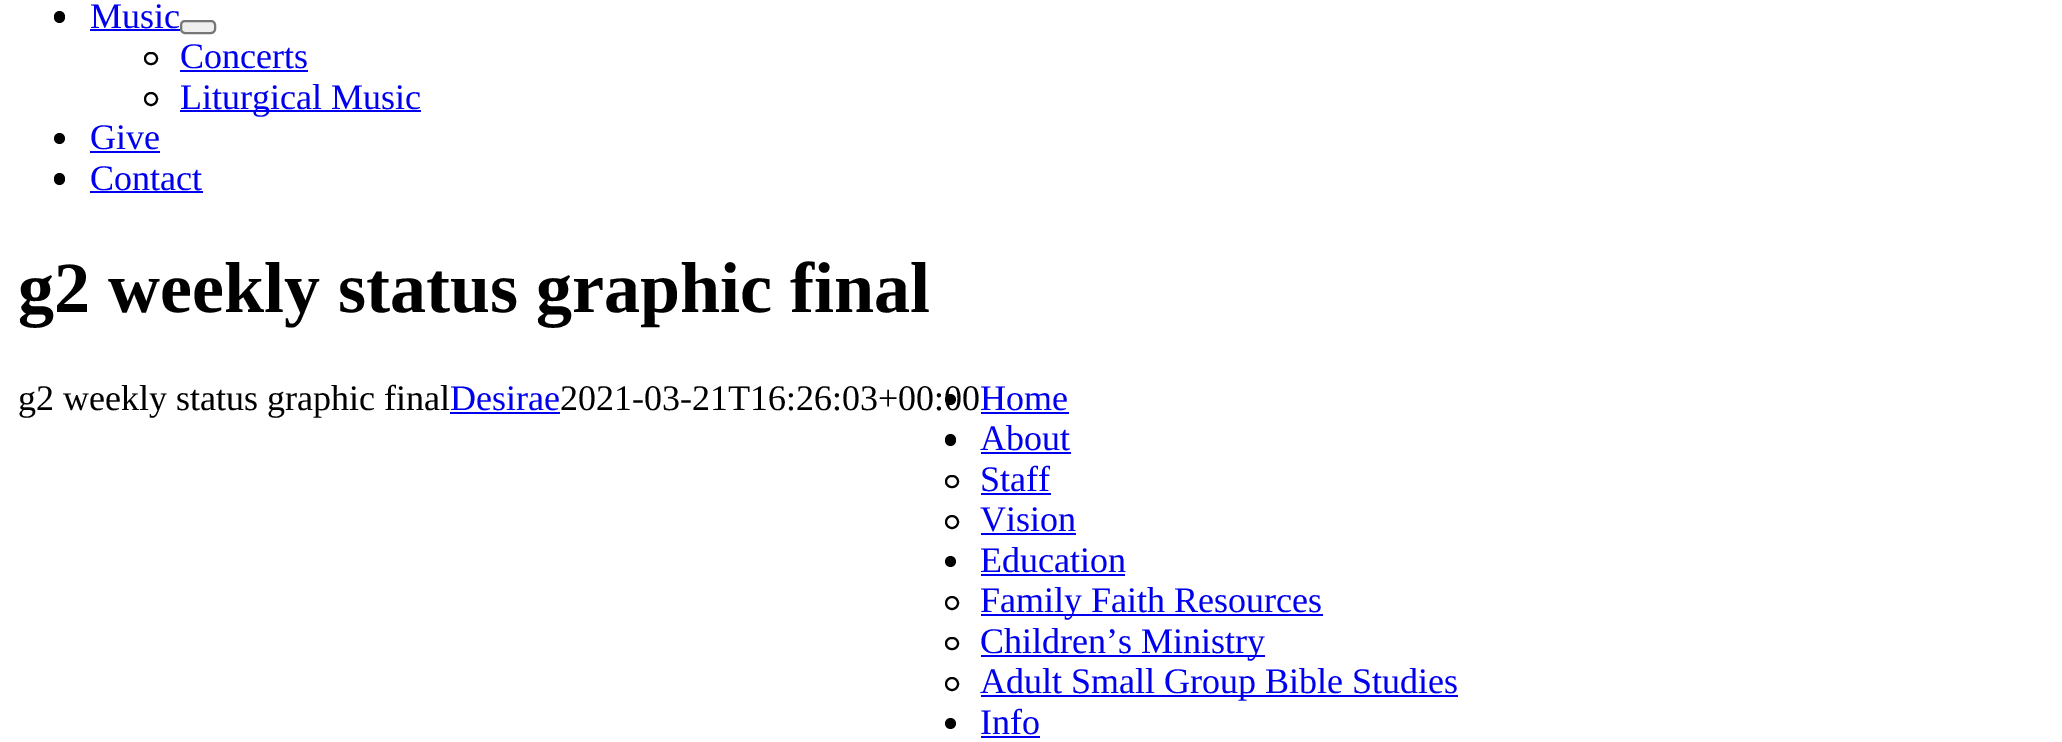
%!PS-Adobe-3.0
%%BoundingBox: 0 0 2062 742
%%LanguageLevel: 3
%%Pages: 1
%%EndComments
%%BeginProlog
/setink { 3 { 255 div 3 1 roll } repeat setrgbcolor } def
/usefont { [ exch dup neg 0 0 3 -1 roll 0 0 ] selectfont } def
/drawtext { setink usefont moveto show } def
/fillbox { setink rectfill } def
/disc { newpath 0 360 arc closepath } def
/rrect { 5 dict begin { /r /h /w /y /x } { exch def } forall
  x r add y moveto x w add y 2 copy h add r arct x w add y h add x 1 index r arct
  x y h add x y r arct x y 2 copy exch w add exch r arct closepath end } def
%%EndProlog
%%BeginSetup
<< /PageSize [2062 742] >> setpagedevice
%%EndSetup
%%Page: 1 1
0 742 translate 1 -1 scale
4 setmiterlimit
0 0 2062 742 255 255 255 fillbox
0 0 0 setink
54 11 11 12 5.5 rrect fill
(Music) 90 28 /LiberationSerif-Regular 36 0 0 238 drawtext
90 29 90 2 0 0 238 fillbox
239 239 239 setink
181 21 34 12 4 rrect gsave fill grestore
118 118 118 setink
2 setlinewidth
stroke
0 0 0 setink
145 53 12 11 5.5 rrect stroke
(Concerts) 180 68 /LiberationSerif-Regular 36 0 0 238 drawtext
180 70 128 2 0 0 238 fillbox
0 0 0 setink
151 99 6 disc stroke
180 110 241 2 0 0 238 fillbox
(Liturgical Music) 180 109 /LiberationSerif-Regular 36 0 0 238 drawtext
0 0 0 setink
59.5 138.5 5.5 disc fill
(Give) 90 149 /LiberationSerif-Regular 36 0 0 238 drawtext
90 151 70 2 0 0 238 fillbox
0 0 0 setink
54 173 11 12 5.5 rrect fill
(Contact) 90 190 /LiberationSerif-Regular 36 0 0 238 drawtext
90 191 113 2 0 0 238 fillbox
(g2 weekly status graphic final) 18 312 /LiberationSerif-Bold 72 0 0 0 drawtext
(g2 weekly status graphic final) 18 410 /LiberationSerif-Regular 36 0 0 0 drawtext
(Desirae) 450 410 /LiberationSerif-Regular 36 0 0 238 drawtext
450 412 110 2 0 0 238 fillbox
(2021-03-21T16:26:03+00:00) 560 410 /LiberationSerif-Regular 36 0 0 0 drawtext
950.5 399.5 5.5 disc fill
(Home) 980 410 /LiberationSerif-Regular 36 0 0 238 drawtext
981 412 88 2 0 0 238 fillbox
0 0 0 setink
945 434 11 12 5.5 rrect fill
(About) 980 450 /LiberationSerif-Regular 36 0 0 238 drawtext
981 452 90 2 0 0 238 fillbox
0 0 0 setink
946 476 12 11 5.5 rrect stroke
(Staff) 980 491 /LiberationSerif-Regular 36 0 0 238 drawtext
981 493 70 2 0 0 238 fillbox
0 0 0 setink
952 522 6 disc stroke
(Vision) 980 531 /LiberationSerif-Regular 36 0 0 238 drawtext
981 533 95 2 0 0 238 fillbox
0 0 0 setink
950.5 561.5 5.5 disc fill
(Education) 980 572 /LiberationSerif-Regular 36 0 0 238 drawtext
981 574 144 2 0 0 238 fillbox
0 0 0 setink
952 603 6 disc stroke
981 614 342 2 0 0 238 fillbox
(Family Faith Resources) 980 612 /LiberationSerif-Regular 36 0 0 238 drawtext
0 0 0 setink
946 638 12 11 5.5 rrect stroke
981 655 284 2 0 0 238 fillbox
(Children’s Ministry) 980 653 /LiberationSerif-Regular 36 0 0 238 drawtext
0 0 0 setink
952 684 6 disc stroke
981 695 477 2 0 0 238 fillbox
(Adult Small Group Bible Studies) 980 693 /LiberationSerif-Regular 36 0 0 238 drawtext
0 0 0 setink
950.5 723.5 5.5 disc fill
(Info) 980 734 /LiberationSerif-Regular 36 0 0 238 drawtext
981 736 59 2 0 0 238 fillbox
showpage
%%EOF
